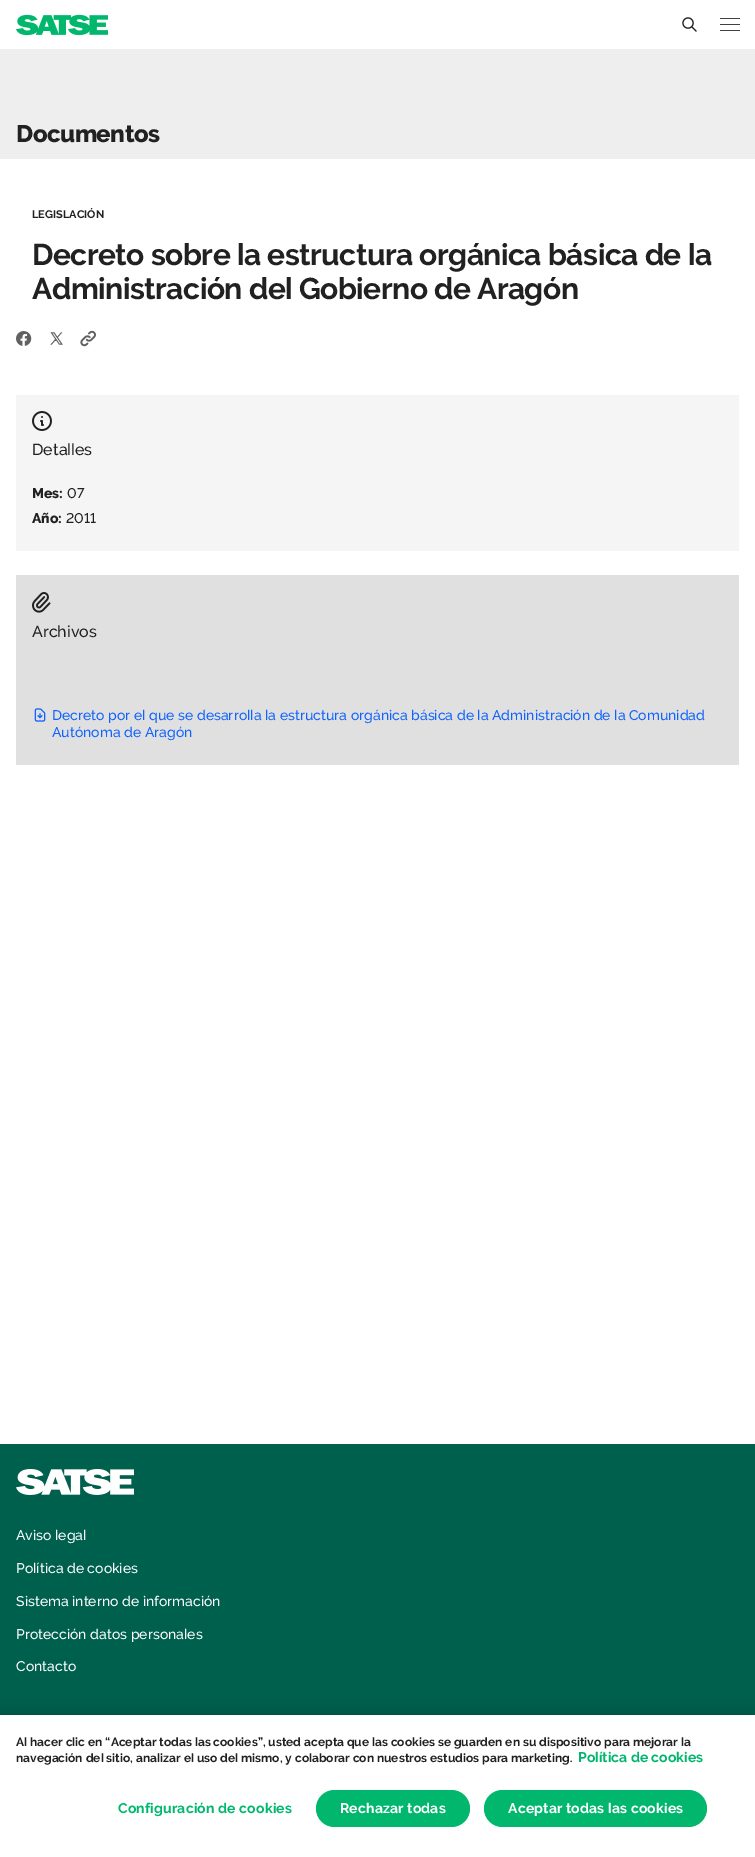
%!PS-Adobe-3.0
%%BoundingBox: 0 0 755 1857
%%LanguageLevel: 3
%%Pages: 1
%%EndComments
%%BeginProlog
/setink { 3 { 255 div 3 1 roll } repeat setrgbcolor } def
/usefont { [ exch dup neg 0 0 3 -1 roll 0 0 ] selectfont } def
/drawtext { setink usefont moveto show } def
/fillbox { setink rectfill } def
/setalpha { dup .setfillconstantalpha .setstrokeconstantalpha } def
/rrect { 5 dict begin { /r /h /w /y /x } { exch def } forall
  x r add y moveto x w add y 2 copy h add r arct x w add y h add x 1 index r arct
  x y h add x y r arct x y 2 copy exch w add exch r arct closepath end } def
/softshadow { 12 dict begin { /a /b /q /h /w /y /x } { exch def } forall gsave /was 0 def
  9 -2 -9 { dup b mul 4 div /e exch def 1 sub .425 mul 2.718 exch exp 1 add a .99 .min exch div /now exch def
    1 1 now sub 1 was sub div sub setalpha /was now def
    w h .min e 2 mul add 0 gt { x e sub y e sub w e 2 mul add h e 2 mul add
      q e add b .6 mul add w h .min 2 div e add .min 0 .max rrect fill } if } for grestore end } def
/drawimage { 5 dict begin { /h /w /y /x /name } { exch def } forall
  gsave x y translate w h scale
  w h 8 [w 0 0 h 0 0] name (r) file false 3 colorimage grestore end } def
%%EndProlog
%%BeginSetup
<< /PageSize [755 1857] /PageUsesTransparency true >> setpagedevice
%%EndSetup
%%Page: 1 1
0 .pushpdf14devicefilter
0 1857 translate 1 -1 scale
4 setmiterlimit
0 0 755 1857 255 255 255 fillbox
(assets/img1.rgb) 16 14 92 22 drawimage
(assets/img2.rgb) 682 17 15 15 drawimage
66 66 66 setink
720 18 20 1 0.5 rrect fill
720 24 20 1 0.5 rrect fill
720 30 20 1 0.5 rrect fill
0 49 755 110 238 238 238 fillbox
/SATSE-ExtraBold 24 usefont
33 33 33 setink
16 142 moveto -0.5 0 (Documentos) ashow
(LEGISLACIÓN) 32 218 /SATSE-Bold 11 33 33 33 drawtext
/SATSE-Bold 30 usefont
32 265 moveto -0.5 0 (Decreto sobre la estructura orgánica básica de la) ashow
32 299 moveto -0.5 0 (Administración del Gobierno de Aragón) ashow
(assets/img3.rgb) 16 331 16 15 drawimage
(assets/img4.rgb) 50 332 13 13 drawimage
(assets/img5.rgb) 80 330 16 17 drawimage
16 395 723 156 245 245 245 fillbox
(assets/img6.rgb) 32 411 20 20 drawimage
(Detalles) 32 455 /SATSE-Medium 16 33 33 33 drawtext
(Mes:) 32 498 /SATSE-ExtraBold 14 33 33 33 drawtext
(07) 67 498 /SATSE-Medium 14 33 33 33 drawtext
(Año:) 32 523 /SATSE-ExtraBold 14 33 33 33 drawtext
(2011) 66 523 /SATSE-Medium 14 33 33 33 drawtext
16 575 723 190 224 224 224 fillbox
(assets/img7.rgb) 32 592 19 21 drawimage
(Archivos) 32 637 /SATSE-Medium 16 33 33 33 drawtext
(assets/img8.rgb) 34 708 12 14 drawimage
(Decreto por el que se desarrolla la estructura orgánica básica de la Administración de la Comunidad) 52 720 /SATSE-Medium 14 15 98 254 drawtext
(Autónoma de Aragón) 52 737 /SATSE-Medium 14 15 98 254 drawtext
0 1444 755 271 0 96 78 fillbox
(assets/img9.rgb) 16 1469 118 26 drawimage
(Aviso legal) 16 1540 /SATSE-Medium 14 255 255 255 drawtext
(Política de cookies) 16 1573 /SATSE-Medium 14 255 255 255 drawtext
(Sistema interno de información) 16 1606 /SATSE-Medium 14 255 255 255 drawtext
(Protección datos personales) 16 1639 /SATSE-Medium 14 255 255 255 drawtext
(Contacto) 16 1671 /SATSE-Medium 14 255 255 255 drawtext
0 0 0 setink
0 1715 755 142 0 9 0.2 softshadow
0 1715 755 142 255 255 255 fillbox
(Al hacer clic en “Aceptar todas las cookies”, usted acepta que las cookies se guarden en su dispositivo para mejorar la) 16 1746 /SATSE-Bold 12 33 33 33 drawtext
(navegación del sitio, analizar el uso del mismo, y colaborar con nuestros estudios para marketing.) 16 1762 /SATSE-Bold 12 33 33 33 drawtext
(Política de cookies) 578 1762 /SATSE-Bold 14 0 183 109 drawtext
118 1813 moveto 0.15 0 (Configuración de cookies) ashow
316 1790 154 37 18.5 rrect fill
255 255 255 setink
340 1813 moveto 0.15 0 (Rechazar todas) ashow
0 183 109 setink
484 1790 223 37 18.5 rrect fill
255 255 255 setink
508 1813 moveto 0.15 0 (Aceptar todas las cookies) ashow
.poppdf14devicefilter showpage
%%EOF
